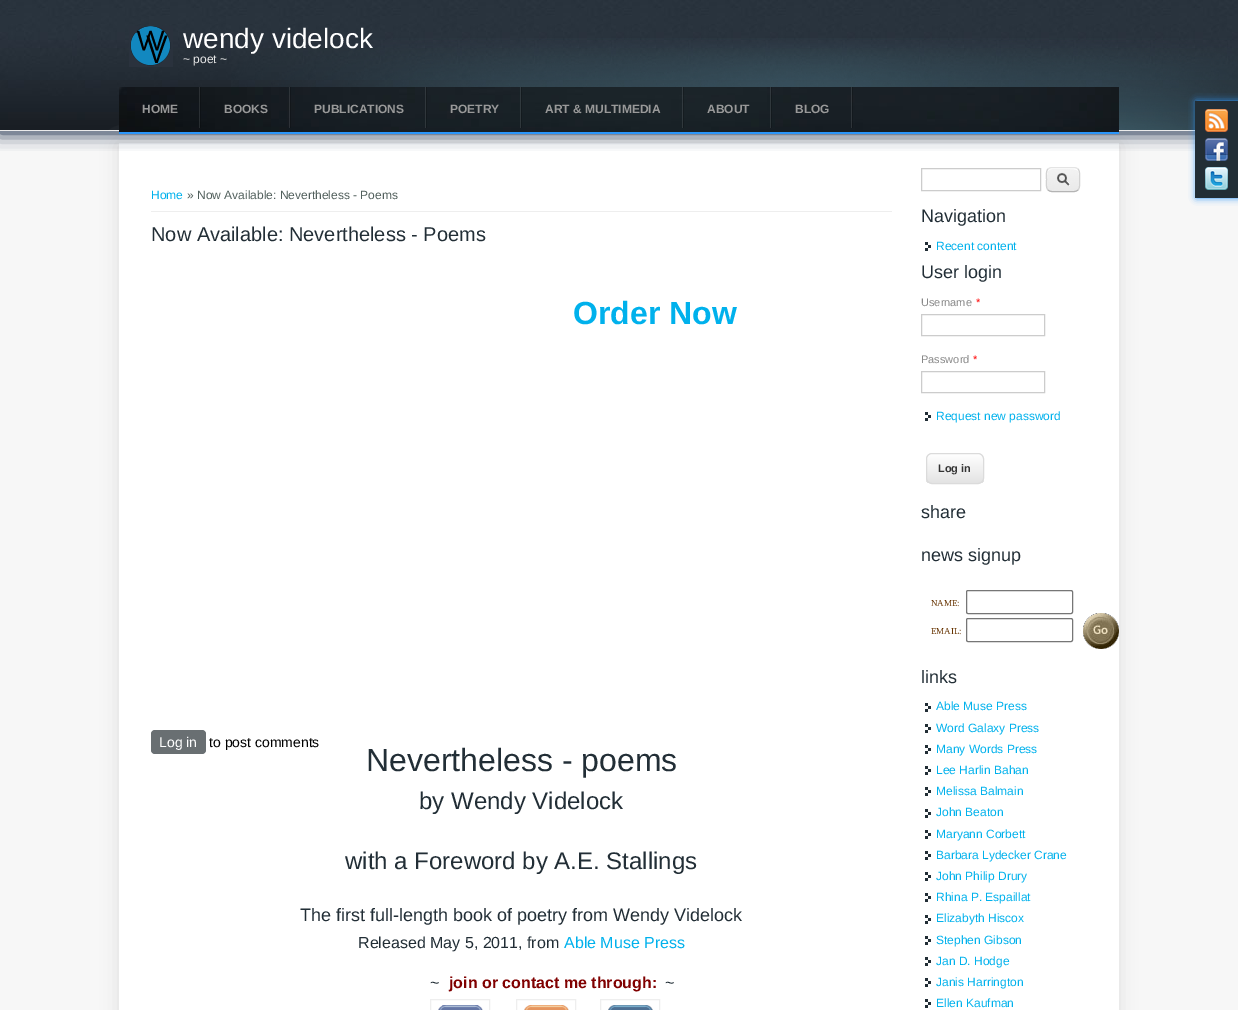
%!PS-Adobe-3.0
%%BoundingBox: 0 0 1238 1010
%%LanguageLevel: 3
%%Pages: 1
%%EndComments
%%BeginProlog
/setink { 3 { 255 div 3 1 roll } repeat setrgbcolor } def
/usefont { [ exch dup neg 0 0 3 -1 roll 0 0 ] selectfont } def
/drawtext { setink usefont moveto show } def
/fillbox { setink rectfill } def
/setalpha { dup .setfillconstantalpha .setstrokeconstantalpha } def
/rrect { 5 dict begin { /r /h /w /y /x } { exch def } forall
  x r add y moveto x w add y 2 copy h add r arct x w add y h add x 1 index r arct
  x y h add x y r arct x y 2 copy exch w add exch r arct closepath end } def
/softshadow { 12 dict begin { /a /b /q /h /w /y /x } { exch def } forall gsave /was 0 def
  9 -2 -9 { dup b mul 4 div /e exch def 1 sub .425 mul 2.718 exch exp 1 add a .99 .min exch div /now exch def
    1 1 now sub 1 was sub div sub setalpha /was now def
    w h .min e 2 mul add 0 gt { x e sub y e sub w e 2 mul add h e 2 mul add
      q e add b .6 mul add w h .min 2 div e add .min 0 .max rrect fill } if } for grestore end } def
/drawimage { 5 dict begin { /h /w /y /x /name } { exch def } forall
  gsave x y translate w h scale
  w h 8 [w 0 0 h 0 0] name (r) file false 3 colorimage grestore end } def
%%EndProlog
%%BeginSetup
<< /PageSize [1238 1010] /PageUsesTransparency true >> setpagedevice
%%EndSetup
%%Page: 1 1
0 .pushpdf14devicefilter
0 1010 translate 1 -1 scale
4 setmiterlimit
0 0 1238 1010 247 247 247 fillbox
(assets/img1.rgb) 0 0 1238 130 drawimage
221 221 221 setink
119 145 1000 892 0 9 1 softshadow
119 143 1000 867 255 255 255 fillbox
gsave
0 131 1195 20 rectclip
2 23 54 setink
-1 2 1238 131 0 9 1 softshadow
grestore
(assets/img2.rgb) 231 38 1007 92 drawimage
0 130 1195 1 235 235 235 fillbox
(assets/img3.rgb) 129 26 44 41 drawimage
(wendy videlock) 183 48 /LiberationSans-Regular 28 255 255 255 drawtext
(~ poet ~) 183 63 /LiberationSans-Regular 12 231 231 231 drawtext
(assets/img4.rgb) 119 87 1000 45 drawimage
119 132 1000 2 43 150 250 fillbox
(assets/img5.rgb) 199 87 2 41 drawimage
(HOME) 142 113 /LiberationSans-Bold 12 153 153 153 drawtext
(assets/img6.rgb) 289 87 2 41 drawimage
(BOOKS) 224 113 /LiberationSans-Bold 12 153 153 153 drawtext
(assets/img7.rgb) 425 87 2 41 drawimage
(PUBLICATIONS) 314 113 /LiberationSans-Bold 12 153 153 153 drawtext
(assets/img8.rgb) 520 87 2 41 drawimage
(POETRY) 450 113 /LiberationSans-Bold 12 153 153 153 drawtext
(assets/img9.rgb) 682 87 2 41 drawimage
(ART & MULTIMEDIA) 545 113 /LiberationSans-Bold 12 153 153 153 drawtext
(assets/img10.rgb) 770 87 2 41 drawimage
(ABOUT) 707 113 /LiberationSans-Bold 12 153 153 153 drawtext
(assets/img11.rgb) 851 87 2 41 drawimage
(BLOG) 795 113 /LiberationSans-Bold 12 153 153 153 drawtext
43 150 250 setink
1196 101 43 97 0 3.5 1 softshadow
1195 101 43 97 34 46 54 fillbox
(assets/img12.rgb) 1205 109 23 23 drawimage
(assets/img13.rgb) 1205 138 23 23 drawimage
(assets/img14.rgb) 1205 167 23 23 drawimage
151 211 741 1 238 238 238 fillbox
(Home) 151 199 /LiberationSans-Regular 12 0 177 236 drawtext
(» Now Available: Nevertheless - Poems) 187 199 /LiberationSans-Regular 12 81 95 92 drawtext
(Now Available: Nevertheless - Poems) 151 241 /LiberationSans-Regular 20 34 46 54 drawtext
105 111 114 setink
151 730 55 24 4 rrect fill
(Log in) 159 747 /LiberationSans-Regular 14 255 255 255 drawtext
(to post comments) 209 747 /LiberationSans-Regular 14 0 0 0 drawtext
(Order Now) 573 324 /LiberationSans-Bold 32 0 177 236 drawtext
(Nevertheless - poems) 366 771 /LiberationSans-Regular 32 34 46 54 drawtext
(by Wendy Videlock) 419 809 /LiberationSans-Regular 24 34 46 54 drawtext
(with a Foreword by A.E. Stallings) 345 869 /LiberationSans-Regular 24 34 46 54 drawtext
(The first full-length book of poetry from Wendy Videlock) 300 921 /LiberationSans-Regular 18 34 46 54 drawtext
(Released May 5, 2011, from) 358 948 /LiberationSans-Regular 16 34 46 54 drawtext
(Able Muse Press) 564 948 /LiberationSans-Regular 16 0 177 236 drawtext
(~) 430 988 /LiberationSans-Regular 16 34 46 54 drawtext
(join or contact me through:) 449 988 /LiberationSans-Bold 16 128 0 0 drawtext
(~) 665 988 /LiberationSans-Regular 16 34 46 54 drawtext
238 238 238 setink
430.5 999.5 59 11 rectstroke
516.5 999.5 59 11 rectstroke
600.5 999.5 59 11 rectstroke
(assets/img15.rgb) 438 1005 45 5 drawimage
(assets/img16.rgb) 524 1005 45 5 drawimage
(assets/img17.rgb) 608 1005 45 5 drawimage
204 204 204 setink
921.5 168.5 119 22 rectstroke
(assets/img18.rgb) 1046 168 34 24 drawimage
255 255 255 setink
1052 169 moveto 1070 169 lineto 1077.5 169 1079 170.5 1079 175 curveto 1079 168 1076.5 168 1070.5 168 curveto 1055.5 168 lineto 1049 168 1047 168.5 1047 175 curveto 1047 172 1048 169 1052 169 curveto closepath 1079 185.5 moveto 1079 187 lineto closepath 1047 187 moveto 1047 186 lineto closepath eofill
228 228 228 setink
1048 169 moveto 1049 168 1050.5 167.5 1052 167.5 curveto 1074 167.5 lineto 1075.5 167.5 1077 168 1078 169 curveto stroke
210 210 210 setink
1078 169 moveto 1080.5 171.5 1079.5 176.5 1079.5 179.5 curveto 1079.5 182.5 1080.5 187.5 1078 190 curveto stroke
180 180 180 setink
1078 190 moveto 1077 191 1075.5 191.5 1074 191.5 curveto 1052 191.5 lineto 1050.5 191.5 1049 191 1048 190 curveto stroke
210 210 210 setink
1048 190 moveto 1045.5 187.5 1046.5 182.5 1046.5 179.5 curveto 1046.5 176.5 1045.5 171.5 1048 169 curveto stroke
(Navigation) 921 222 /LiberationSans-Regular 18 34 46 54 drawtext
(assets/img19.rgb) 925 242 6 9 drawimage
(Recent content) 936 250 /LiberationSans-Regular 12 0 177 236 drawtext
(User login) 921 278 /LiberationSans-Regular 18 34 46 54 drawtext
(Username) 921 306 /LiberationSans-Regular 11 136 136 136 drawtext
(*) 976 306 /LiberationSans-Regular 11 255 0 0 drawtext
204 204 204 setink
921.5 314.5 123 21 rectstroke
(Password) 921 363 /LiberationSans-Regular 11 136 136 136 drawtext
(*) 973 363 /LiberationSans-Regular 11 255 0 0 drawtext
204 204 204 setink
921.5 371.5 123 21 rectstroke
(assets/img19.rgb) 925 412 6 9 drawimage
(Request new password) 936 420 /LiberationSans-Regular 12 0 177 236 drawtext
gsave
926 453 58 31 6 rrect clip newpath
gsave 926 454 moveto 984 454 lineto 984 483 lineto 926 483 lineto closepath clip newpath
<< /ShadingType 2 /ColorSpace /DeviceRGB /Coords [955 454 955 483] /Extend [true true] /Function << /FunctionType 2 /Domain [0 1] /C0 [1 1 1] /C1 [0.89 0.89 0.89] /N 1 >> >> shfill grestore
grestore
219 219 219 setink
926.5 453.5 57 30 5.5 rrect stroke
(Log in) 938 472 /LiberationSans-Bold 11 51 51 51 drawtext
(share) 921 518 /LiberationSans-Regular 18 34 46 54 drawtext
(news signup) 921 561 /LiberationSans-Regular 18 34 46 54 drawtext
(NAME:) 931 606 /LiberationSerif-Regular 9 102 51 0 drawtext
118 118 118 setink
966.5 590.5 106 23 1.5 rrect stroke
(EMAIL:) 931 634 /LiberationSerif-Regular 9 102 51 0 drawtext
118 118 118 setink
966.5 618.5 106 23 1.5 rrect stroke
(assets/img20.rgb) 1083 613 36 36 drawimage
(links) 921 683 /LiberationSans-Regular 18 34 46 54 drawtext
(assets/img19.rgb) 925 703 6 9 drawimage
(Able Muse Press) 936 710 /LiberationSans-Regular 12 0 177 236 drawtext
(assets/img19.rgb) 925 724 6 9 drawimage
(Word Galaxy Press) 936 732 /LiberationSans-Regular 12 0 177 236 drawtext
(assets/img19.rgb) 925 745 6 9 drawimage
(Many Words Press) 936 753 /LiberationSans-Regular 12 0 177 236 drawtext
(assets/img19.rgb) 925 766 6 9 drawimage
(Lee Harlin Bahan) 936 774 /LiberationSans-Regular 12 0 177 236 drawtext
(assets/img19.rgb) 925 787 6 9 drawimage
(Melissa Balmain) 936 795 /LiberationSans-Regular 12 0 177 236 drawtext
(assets/img19.rgb) 925 809 6 9 drawimage
(John Beaton) 936 816 /LiberationSans-Regular 12 0 177 236 drawtext
(assets/img19.rgb) 925 830 6 9 drawimage
(Maryann Corbett) 936 838 /LiberationSans-Regular 12 0 177 236 drawtext
(assets/img19.rgb) 925 851 6 9 drawimage
(Barbara Lydecker Crane) 936 859 /LiberationSans-Regular 12 0 177 236 drawtext
(assets/img19.rgb) 925 872 6 9 drawimage
(John Philip Drury) 936 880 /LiberationSans-Regular 12 0 177 236 drawtext
(assets/img19.rgb) 925 893 6 9 drawimage
(Rhina P. Espaillat) 936 901 /LiberationSans-Regular 12 0 177 236 drawtext
(assets/img19.rgb) 925 915 6 9 drawimage
(Elizabyth Hiscox) 936 922 /LiberationSans-Regular 12 0 177 236 drawtext
(assets/img19.rgb) 925 936 6 9 drawimage
(Stephen Gibson) 936 944 /LiberationSans-Regular 12 0 177 236 drawtext
(assets/img19.rgb) 925 957 6 9 drawimage
(Jan D. Hodge) 936 965 /LiberationSans-Regular 12 0 177 236 drawtext
(assets/img19.rgb) 925 978 6 9 drawimage
(Janis Harrington) 936 986 /LiberationSans-Regular 12 0 177 236 drawtext
(assets/img19.rgb) 925 999 6 9 drawimage
(Ellen Kaufman) 936 1007 /LiberationSans-Regular 12 0 177 236 drawtext
.poppdf14devicefilter showpage
%%EOF
